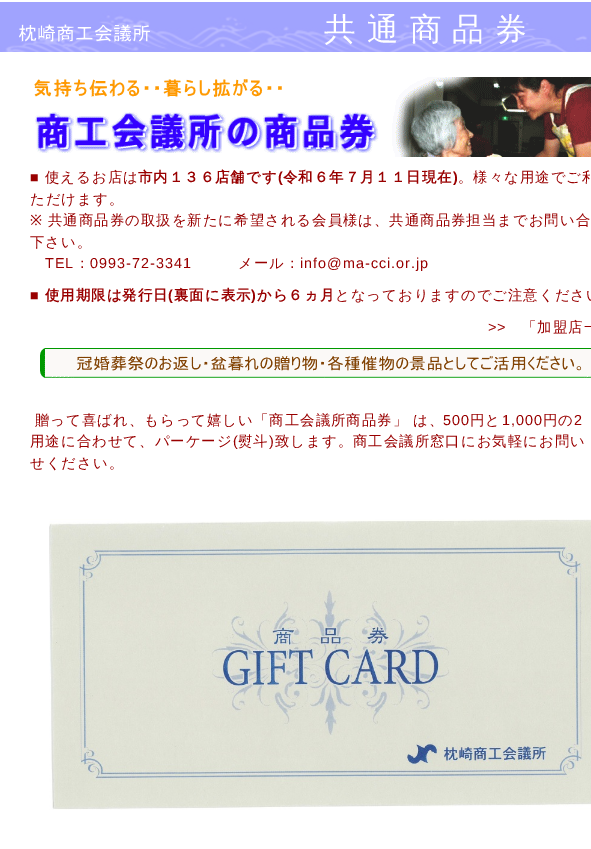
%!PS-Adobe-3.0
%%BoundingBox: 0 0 591 849
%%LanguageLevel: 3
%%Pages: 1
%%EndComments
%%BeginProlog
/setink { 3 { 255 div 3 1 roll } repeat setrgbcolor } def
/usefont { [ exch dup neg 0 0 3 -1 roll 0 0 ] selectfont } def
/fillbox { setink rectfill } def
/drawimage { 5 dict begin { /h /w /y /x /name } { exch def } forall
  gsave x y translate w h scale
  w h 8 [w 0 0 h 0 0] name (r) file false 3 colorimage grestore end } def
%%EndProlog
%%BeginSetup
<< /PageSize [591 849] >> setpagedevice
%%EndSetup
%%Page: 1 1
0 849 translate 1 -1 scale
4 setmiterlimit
0 0 591 849 255 255 255 fillbox
(assets/img1.rgb) 0 0 591 2 drawimage
(assets/img2.rgb) 0 2 591 50 drawimage
/WenQuanYiZenHei-Medium 31.75 usefont
324 40 moveto -0.5 0 32 1 0 (共 通 商 品 券) awidthshow
(assets/img3.rgb) 34 77 557 80 drawimage
/LiberationSans-Regular 14.4 usefont
153 0 0 setink
30 182 moveto 1 0 (■) ashow
/WenQuanYiZenHei-Medium 14.4 usefont
45 182 moveto 1 0 (使えるお店は) ashow
/WenQuanYiZenHei-Bold 14.4 usefont
138 182 moveto 1 0 (市内１３６店舗です) ashow
/LiberationSans-Bold 14.4 usefont
278 182 moveto 1 0 (\() ashow
/WenQuanYiZenHei-Bold 14.4 usefont
283 182 moveto 1 0 (令和６年７月１１日現在) ashow
/LiberationSans-Bold 14.4 usefont
453 182 moveto 1 0 (\)) ashow
/WenQuanYiZenHei-Medium 14.4 usefont
458 182 moveto 1 0 (。様々な用途でご利) ashow
30 204 moveto 1 0 (ただけます。) ashow
/NotoSans-Regular 14.4 usefont
30 225 moveto 1 0 (※) ashow
/WenQuanYiZenHei-Medium 14.4 usefont
48 225 moveto 1 0 (共通商品券の取扱を新たに希望される会員様は、共通商品券担当までお問い合) ashow
30 247 moveto 1 0 (下さい。) ashow
/LiberationSans-Regular 14.4 usefont
45 268 moveto 1 0 (TEL) ashow
/WenQuanYiZenHei-Medium 14.4 usefont
75 268 moveto 1 0 (：) ashow
/LiberationSans-Regular 14.4 usefont
90 268 moveto 1 0 (0993-72-3341) ashow
/WenQuanYiZenHei-Medium 14.4 usefont
238 268 moveto 1 0 (メール：) ashow
/LiberationSans-Regular 14.4 usefont
300 268 moveto 1 0 (info@ma-cci.or.jp) ashow
/LiberationSans-Bold 14.4 usefont
30 300 moveto 1 0 (■) ashow
/WenQuanYiZenHei-Bold 14.4 usefont
45 300 moveto 1 0 (使用期限は発行日) ashow
/LiberationSans-Bold 14.4 usefont
168 300 moveto 1 0 (\() ashow
/WenQuanYiZenHei-Bold 14.4 usefont
174 300 moveto 1 0 (裏面に表示) ashow
/LiberationSans-Bold 14.4 usefont
251 300 moveto 1 0 (\)) ashow
/WenQuanYiZenHei-Bold 14.4 usefont
257 300 moveto 1 0 (から６ヵ月) ashow
/WenQuanYiZenHei-Medium 14.4 usefont
335 300 moveto 1 0 (となっておりますのでご注意ください) ashow
/LiberationSans-Regular 14.4 usefont
488 332 moveto 1 0 (>>) ashow
/WenQuanYiZenHei-Medium 14.4 usefont
522 332 moveto 1 0 (「加盟店一) ashow
(assets/img4.rgb) 40 348 551 30 drawimage
35 425 moveto 1 0 (贈って喜ばれ、もらって嬉しい「商工会議所商品券」 は、) ashow
/LiberationSans-Regular 14.4 usefont
443 425 moveto 1 0 (500) ashow
/WenQuanYiZenHei-Medium 14.4 usefont
470 425 moveto 1 0 (円と) ashow
/LiberationSans-Regular 14.4 usefont
502 425 moveto 1 0 (1,000) ashow
/WenQuanYiZenHei-Medium 14.4 usefont
543 425 moveto 1 0 (円の) ashow
/LiberationSans-Regular 14.4 usefont
574 425 moveto 1 0 (2) ashow
/WenQuanYiZenHei-Medium 14.4 usefont
30 446 moveto 1 0 (用途に合わせて、パーケージ) ashow
/LiberationSans-Regular 14.4 usefont
233 446 moveto 1 0 (\() ashow
/WenQuanYiZenHei-Medium 14.4 usefont
238 446 moveto 1 0 (熨斗) ashow
/LiberationSans-Regular 14.4 usefont
269 446 moveto 1 0 (\)) ashow
/WenQuanYiZenHei-Medium 14.4 usefont
275 446 moveto 1 0 (致します。商工会議所窓口にお気軽にお問い) ashow
30 468 moveto 1 0 (せください。) ashow
(assets/img5.rgb) 49 519 542 291 drawimage
showpage
%%EOF
